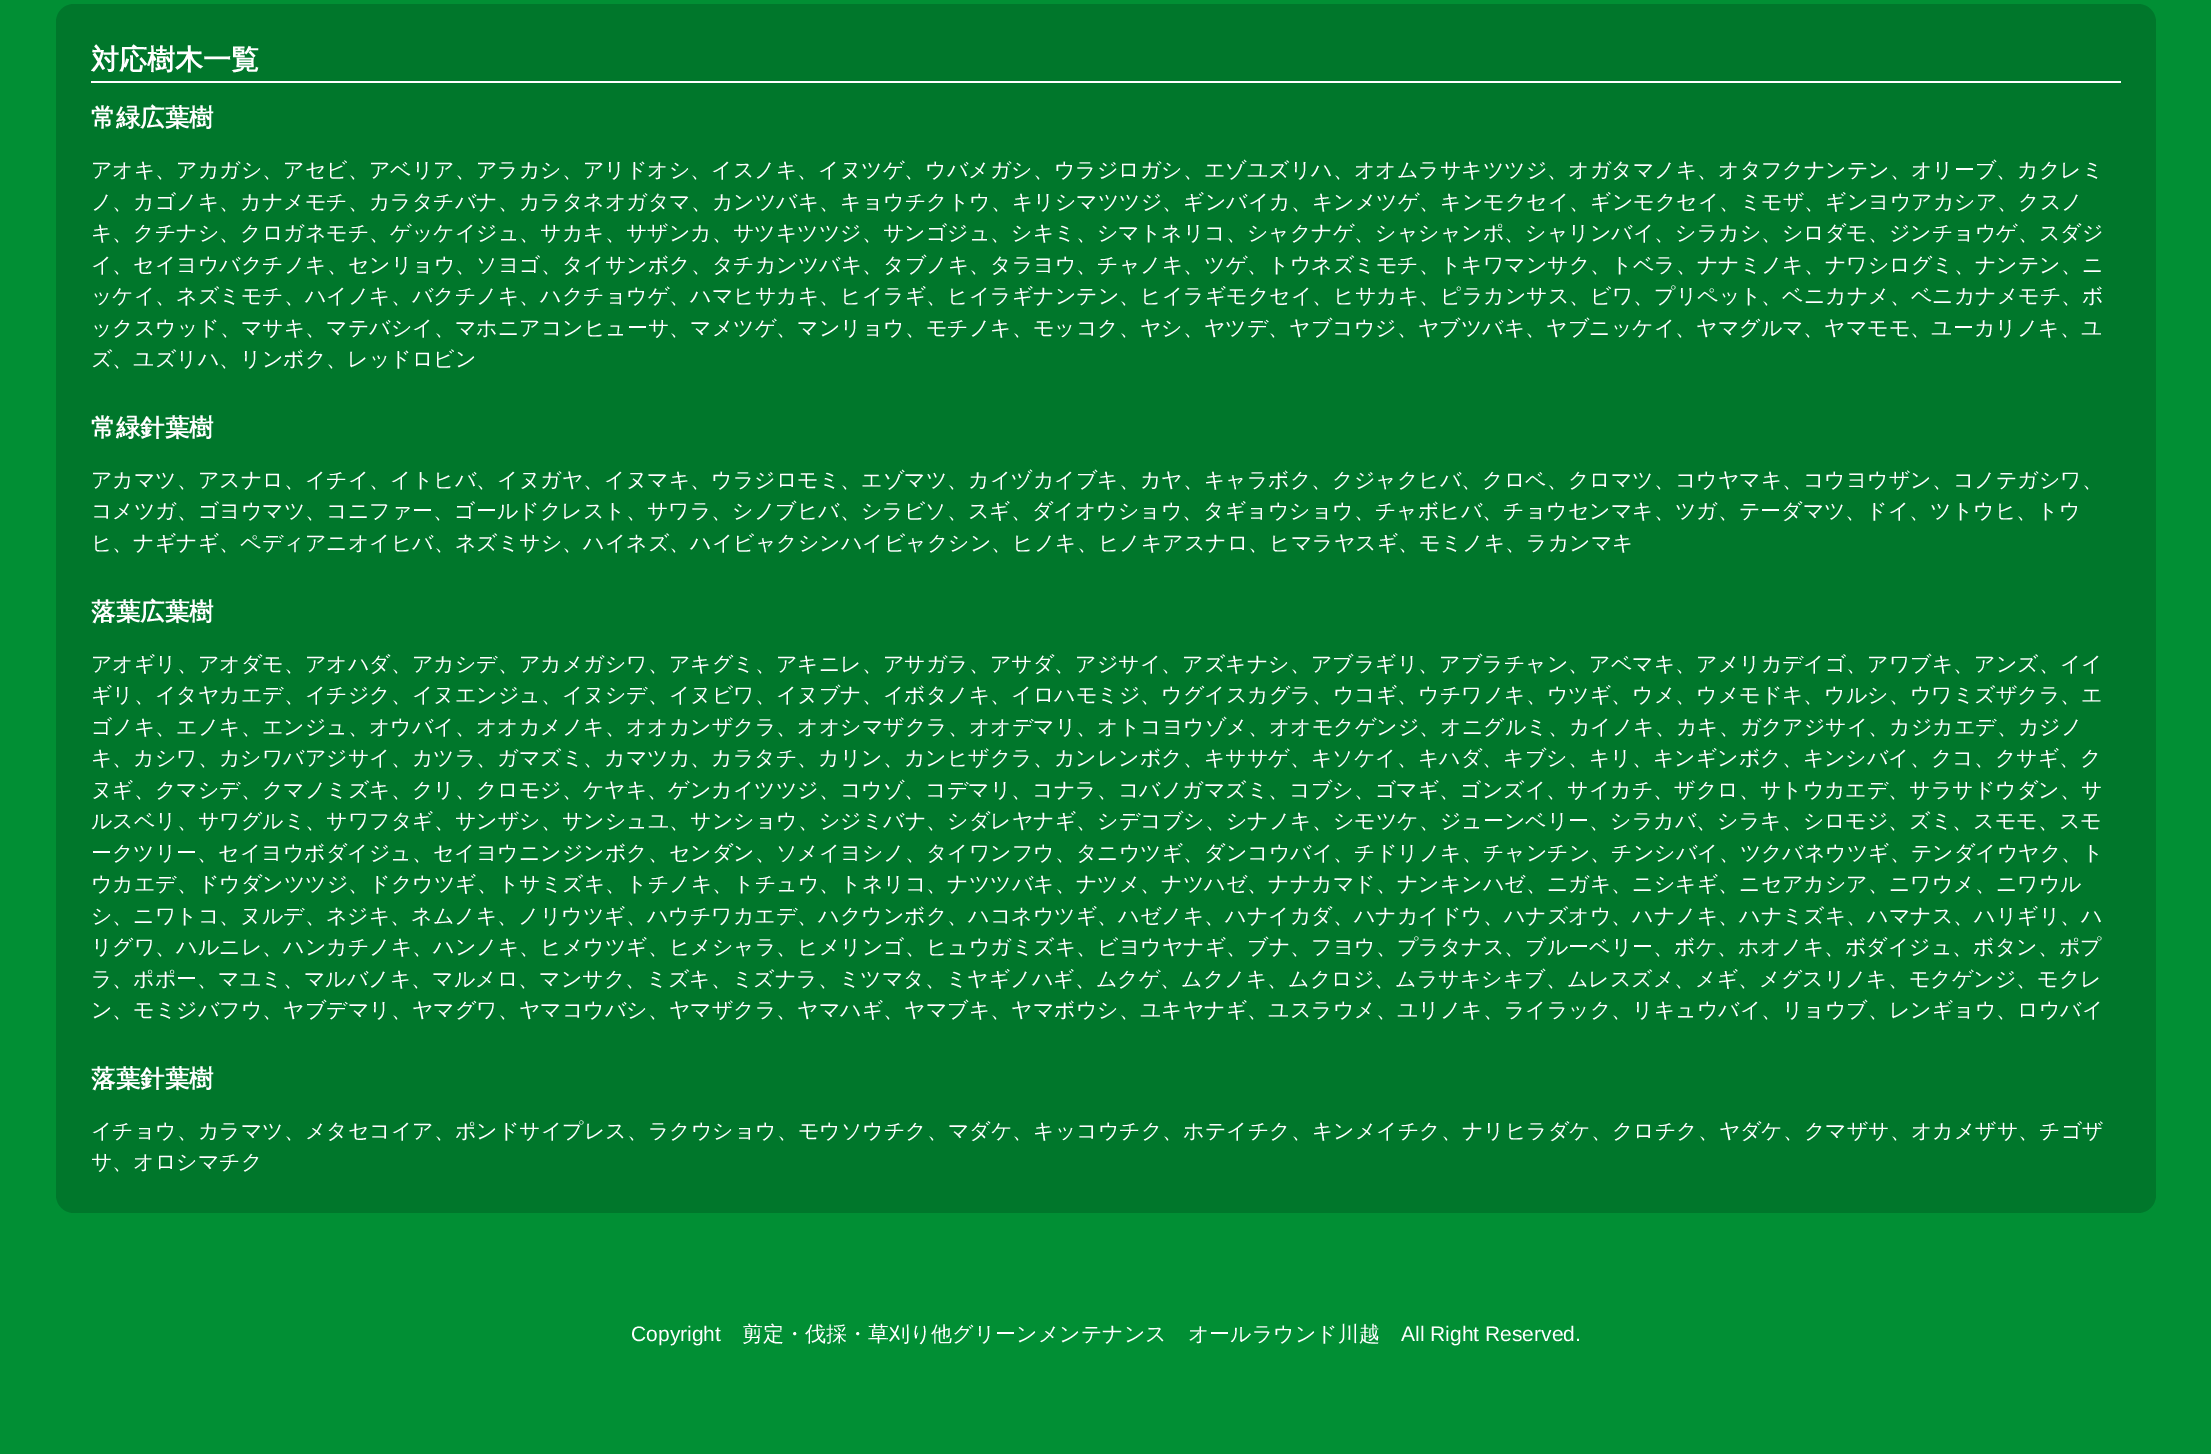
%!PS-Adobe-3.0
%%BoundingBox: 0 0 2211 1454
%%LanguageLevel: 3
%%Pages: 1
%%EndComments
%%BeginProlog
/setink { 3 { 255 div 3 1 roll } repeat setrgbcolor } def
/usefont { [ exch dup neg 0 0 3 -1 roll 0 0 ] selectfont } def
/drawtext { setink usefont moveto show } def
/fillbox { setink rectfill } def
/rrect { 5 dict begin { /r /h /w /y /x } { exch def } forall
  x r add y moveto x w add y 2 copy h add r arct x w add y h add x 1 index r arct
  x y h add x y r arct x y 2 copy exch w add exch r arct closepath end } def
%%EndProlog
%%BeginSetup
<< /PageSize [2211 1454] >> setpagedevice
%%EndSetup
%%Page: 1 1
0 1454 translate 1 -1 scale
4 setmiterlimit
0 0 2211 1454 1 143 52 fillbox
0 119 43 setink
56 4 2100 1209 18 rrect fill
91 81 2030 2 255 255 255 fillbox
(対応樹木一覧) 91 69 /WenQuanYiZenHei-Bold 28 255 255 255 drawtext
(常緑広葉樹) 91 126 /WenQuanYiZenHei-Bold 24.5 255 255 255 drawtext
(アオキ、アカガシ、アセビ、アベリア、アラカシ、アリドオシ、イスノキ、イヌツゲ、ウバメガシ、ウラジロガシ、エゾユズリハ、オオムラサキツツジ、オガタマノキ、オタフクナンテン、オリーブ、カクレミ) 91 177 /WenQuanYiZenHei-Medium 21 255 255 255 drawtext
(ノ、カゴノキ、カナメモチ、カラタチバナ、カラタネオガタマ、カンツバキ、キョウチクトウ、キリシマツツジ、ギンバイカ、キンメツゲ、キンモクセイ、ギンモクセイ、ミモザ、ギンヨウアカシア、クスノ) 91 209 /WenQuanYiZenHei-Medium 21 255 255 255 drawtext
(キ、クチナシ、クロガネモチ、ゲッケイジュ、サカキ、サザンカ、サツキツツジ、サンゴジュ、シキミ、シマトネリコ、シャクナゲ、シャシャンポ、シャリンバイ、シラカシ、シロダモ、ジンチョウゲ、スダジ) 91 240 /WenQuanYiZenHei-Medium 21 255 255 255 drawtext
(イ、セイヨウバクチノキ、センリョウ、ソヨゴ、タイサンボク、タチカンツバキ、タブノキ、タラヨウ、チャノキ、ツゲ、トウネズミモチ、トキワマンサク、トベラ、ナナミノキ、ナワシログミ、ナンテン、ニ) 91 272 /WenQuanYiZenHei-Medium 21 255 255 255 drawtext
(ッケイ、ネズミモチ、ハイノキ、バクチノキ、ハクチョウゲ、ハマヒサカキ、ヒイラギ、ヒイラギナンテン、ヒイラギモクセイ、ヒサカキ、ピラカンサス、ビワ、プリペット、ベニカナメ、ベニカナメモチ、ボ) 91 303 /WenQuanYiZenHei-Medium 21 255 255 255 drawtext
(ックスウッド、マサキ、マテバシイ、マホニアコンヒューサ、マメツゲ、マンリョウ、モチノキ、モッコク、ヤシ、ヤツデ、ヤブコウジ、ヤブツバキ、ヤブニッケイ、ヤマグルマ、ヤマモモ、ユーカリノキ、ユ) 91 335 /WenQuanYiZenHei-Medium 21 255 255 255 drawtext
(ズ、ユズリハ、リンボク、レッドロビン) 91 366 /WenQuanYiZenHei-Medium 21 255 255 255 drawtext
(常緑針葉樹) 91 436 /WenQuanYiZenHei-Bold 24.5 255 255 255 drawtext
(アカマツ、アスナロ、イチイ、イトヒバ、イヌガヤ、イヌマキ、ウラジロモミ、エゾマツ、カイヅカイブキ、カヤ、キャラボク、クジャクヒバ、クロベ、クロマツ、コウヤマキ、コウヨウザン、コノテガシワ、) 91 487 /WenQuanYiZenHei-Medium 21 255 255 255 drawtext
(コメツガ、ゴヨウマツ、コニファー、ゴールドクレスト、サワラ、シノブヒバ、シラビソ、スギ、ダイオウショウ、タギョウショウ、チャボヒバ、チョウセンマキ、ツガ、テーダマツ、ドイ、ツトウヒ、トウ) 91 518 /WenQuanYiZenHei-Medium 21 255 255 255 drawtext
(ヒ、ナギナギ、ペディアニオイヒバ、ネズミサシ、ハイネズ、ハイビャクシンハイビャクシン、ヒノキ、ヒノキアスナロ、ヒマラヤスギ、モミノキ、ラカンマキ) 91 550 /WenQuanYiZenHei-Medium 21 255 255 255 drawtext
(落葉広葉樹) 91 620 /WenQuanYiZenHei-Bold 24.5 255 255 255 drawtext
(アオギリ、アオダモ、アオハダ、アカシデ、アカメガシワ、アキグミ、アキニレ、アサガラ、アサダ、アジサイ、アズキナシ、アブラギリ、アブラチャン、アベマキ、アメリカデイゴ、アワブキ、アンズ、イイ) 91 671 /WenQuanYiZenHei-Medium 21 255 255 255 drawtext
(ギリ、イタヤカエデ、イチジク、イヌエンジュ、イヌシデ、イヌビワ、イヌブナ、イボタノキ、イロハモミジ、ウグイスカグラ、ウコギ、ウチワノキ、ウツギ、ウメ、ウメモドキ、ウルシ、ウワミズザクラ、エ) 91 702 /WenQuanYiZenHei-Medium 21 255 255 255 drawtext
(ゴノキ、エノキ、エンジュ、オウバイ、オオカメノキ、オオカンザクラ、オオシマザクラ、オオデマリ、オトコヨウゾメ、オオモクゲンジ、オニグルミ、カイノキ、カキ、ガクアジサイ、カジカエデ、カジノ) 91 734 /WenQuanYiZenHei-Medium 21 255 255 255 drawtext
(キ、カシワ、カシワバアジサイ、カツラ、ガマズミ、カマツカ、カラタチ、カリン、カンヒザクラ、カンレンボク、キササゲ、キソケイ、キハダ、キブシ、キリ、キンギンボク、キンシバイ、クコ、クサギ、ク) 91 765 /WenQuanYiZenHei-Medium 21 255 255 255 drawtext
(ヌギ、クマシデ、クマノミズキ、クリ、クロモジ、ケヤキ、ゲンカイツツジ、コウゾ、コデマリ、コナラ、コバノガマズミ、コブシ、ゴマギ、ゴンズイ、サイカチ、ザクロ、サトウカエデ、サラサドウダン、サ) 91 797 /WenQuanYiZenHei-Medium 21 255 255 255 drawtext
(ルスベリ、サワグルミ、サワフタギ、サンザシ、サンシュユ、サンショウ、シジミバナ、シダレヤナギ、シデコブシ、シナノキ、シモツケ、ジューンベリー、シラカバ、シラキ、シロモジ、ズミ、スモモ、スモ) 91 828 /WenQuanYiZenHei-Medium 21 255 255 255 drawtext
(ークツリー、セイヨウボダイジュ、セイヨウニンジンボク、センダン、ソメイヨシノ、タイワンフウ、タニウツギ、ダンコウバイ、チドリノキ、チャンチン、チンシバイ、ツクバネウツギ、テンダイウヤク、ト) 91 860 /WenQuanYiZenHei-Medium 21 255 255 255 drawtext
(ウカエデ、ドウダンツツジ、ドクウツギ、トサミズキ、トチノキ、トチュウ、トネリコ、ナツツバキ、ナツメ、ナツハゼ、ナナカマド、ナンキンハゼ、ニガキ、ニシキギ、ニセアカシア、ニワウメ、ニワウル) 91 891 /WenQuanYiZenHei-Medium 21 255 255 255 drawtext
(シ、ニワトコ、ヌルデ、ネジキ、ネムノキ、ノリウツギ、ハウチワカエデ、ハクウンボク、ハコネウツギ、ハゼノキ、ハナイカダ、ハナカイドウ、ハナズオウ、ハナノキ、ハナミズキ、ハマナス、ハリギリ、ハ) 91 923 /WenQuanYiZenHei-Medium 21 255 255 255 drawtext
(リグワ、ハルニレ、ハンカチノキ、ハンノキ、ヒメウツギ、ヒメシャラ、ヒメリンゴ、ヒュウガミズキ、ビヨウヤナギ、ブナ、フヨウ、プラタナス、ブルーベリー、ボケ、ホオノキ、ボダイジュ、ボタン、ポプ) 91 954 /WenQuanYiZenHei-Medium 21 255 255 255 drawtext
(ラ、ポポー、マユミ、マルバノキ、マルメロ、マンサク、ミズキ、ミズナラ、ミツマタ、ミヤギノハギ、ムクゲ、ムクノキ、ムクロジ、ムラサキシキブ、ムレスズメ、メギ、メグスリノキ、モクゲンジ、モクレ) 91 986 /WenQuanYiZenHei-Medium 21 255 255 255 drawtext
(ン、モミジバフウ、ヤブデマリ、ヤマグワ、ヤマコウバシ、ヤマザクラ、ヤマハギ、ヤマブキ、ヤマボウシ、ユキヤナギ、ユスラウメ、ユリノキ、ライラック、リキュウバイ、リョウブ、レンギョウ、ロウバイ) 91 1017 /WenQuanYiZenHei-Medium 21 255 255 255 drawtext
(落葉針葉樹) 91 1087 /WenQuanYiZenHei-Bold 24.5 255 255 255 drawtext
(イチョウ、カラマツ、メタセコイア、ポンドサイプレス、ラクウショウ、モウソウチク、マダケ、キッコウチク、ホテイチク、キンメイチク、ナリヒラダケ、クロチク、ヤダケ、クマザサ、オカメザサ、チゴザ) 91 1138 /WenQuanYiZenHei-Medium 21 255 255 255 drawtext
(サ、オロシマチク) 91 1169 /WenQuanYiZenHei-Medium 21 255 255 255 drawtext
(Copyright) 631 1341 /LiberationSans-Regular 21 255 255 255 drawtext
(剪定・伐採・草刈り他グリーンメンテナンス　オールラウンド川越) 742 1341 /WenQuanYiZenHei-Medium 21 255 255 255 drawtext
(All Right Reserved.) 1401 1341 /LiberationSans-Regular 21 255 255 255 drawtext
showpage
%%EOF
